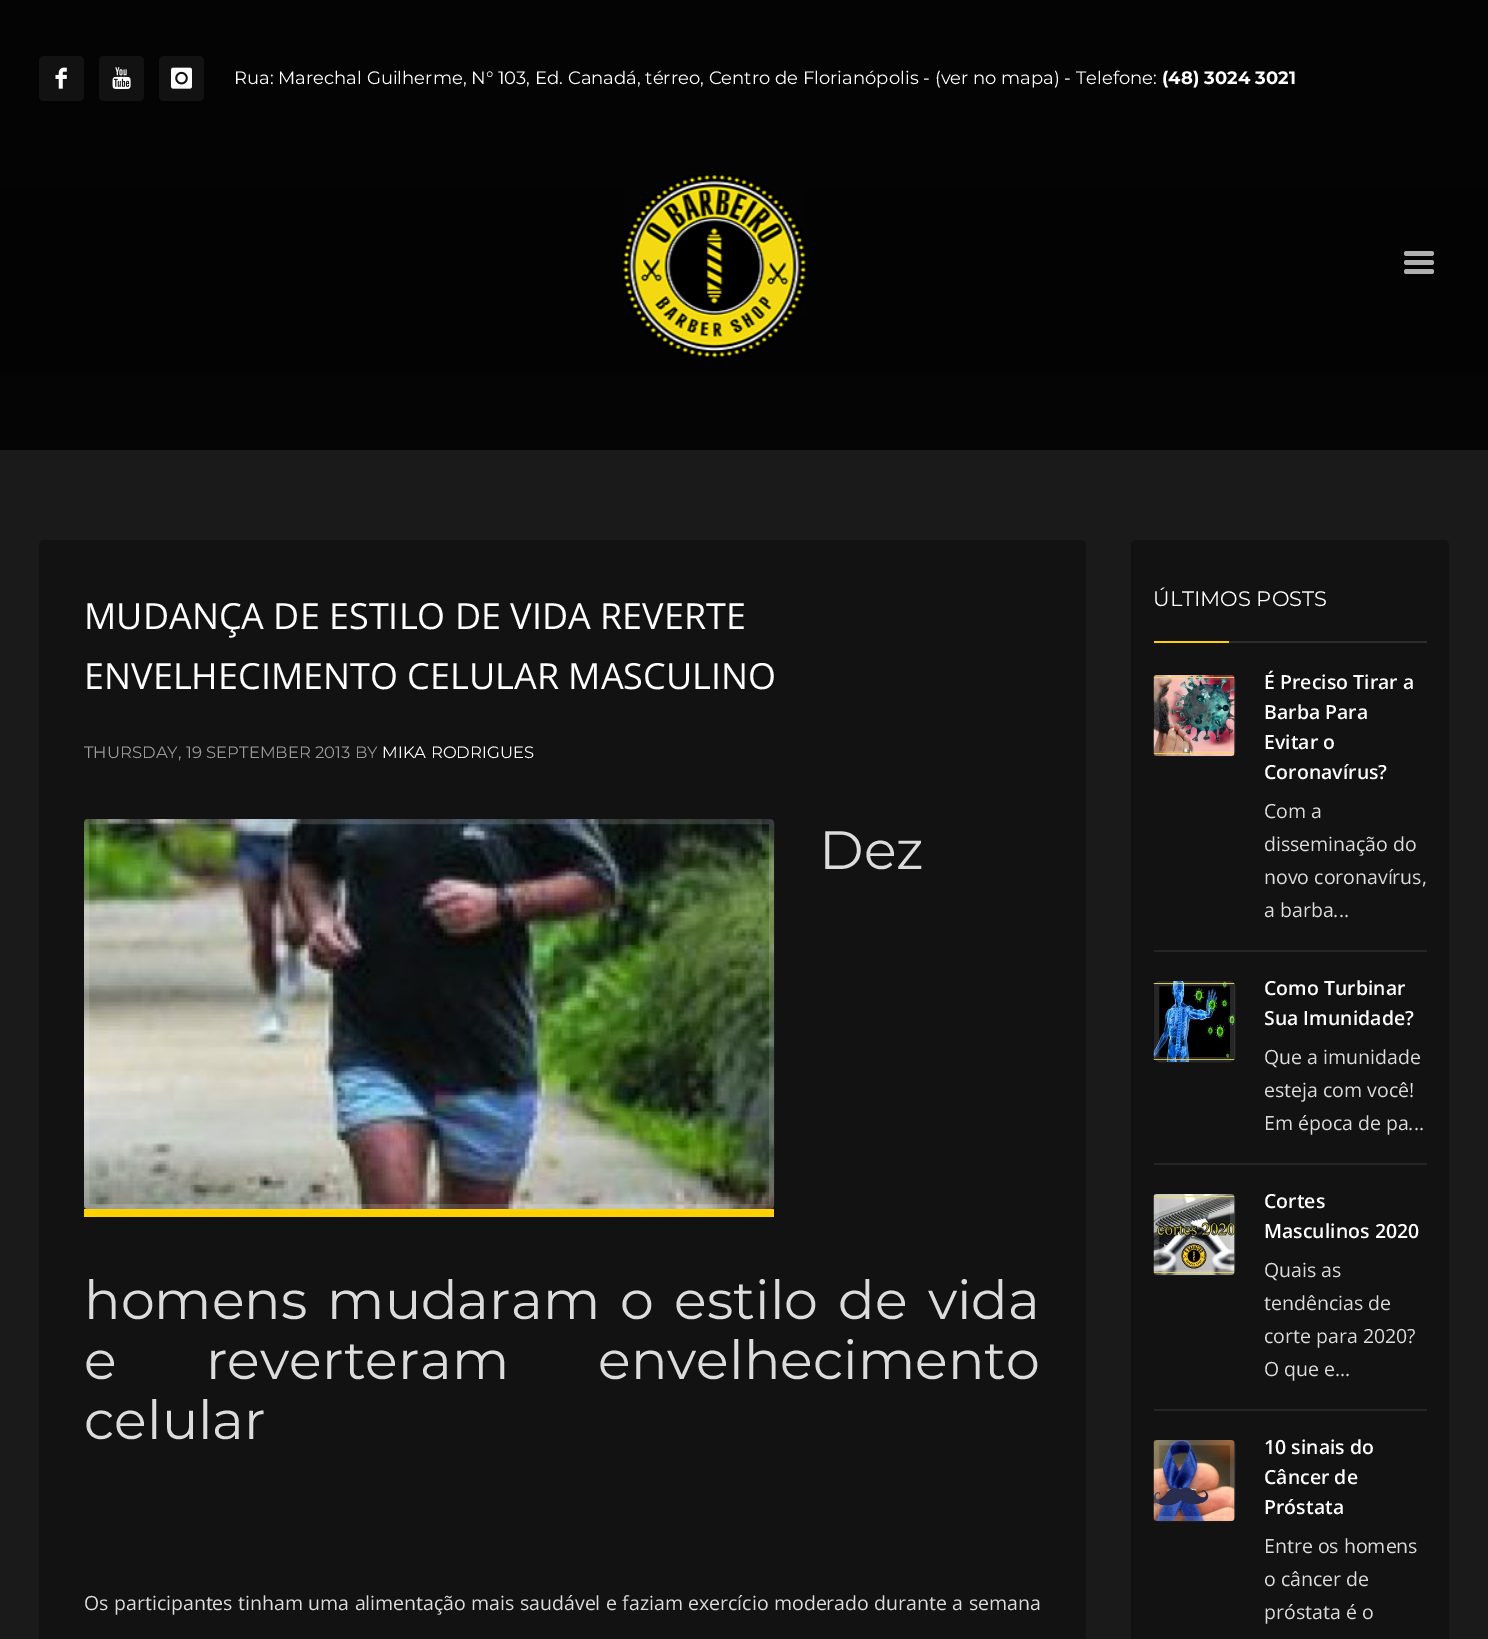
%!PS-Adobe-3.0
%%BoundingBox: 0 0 1488 1639
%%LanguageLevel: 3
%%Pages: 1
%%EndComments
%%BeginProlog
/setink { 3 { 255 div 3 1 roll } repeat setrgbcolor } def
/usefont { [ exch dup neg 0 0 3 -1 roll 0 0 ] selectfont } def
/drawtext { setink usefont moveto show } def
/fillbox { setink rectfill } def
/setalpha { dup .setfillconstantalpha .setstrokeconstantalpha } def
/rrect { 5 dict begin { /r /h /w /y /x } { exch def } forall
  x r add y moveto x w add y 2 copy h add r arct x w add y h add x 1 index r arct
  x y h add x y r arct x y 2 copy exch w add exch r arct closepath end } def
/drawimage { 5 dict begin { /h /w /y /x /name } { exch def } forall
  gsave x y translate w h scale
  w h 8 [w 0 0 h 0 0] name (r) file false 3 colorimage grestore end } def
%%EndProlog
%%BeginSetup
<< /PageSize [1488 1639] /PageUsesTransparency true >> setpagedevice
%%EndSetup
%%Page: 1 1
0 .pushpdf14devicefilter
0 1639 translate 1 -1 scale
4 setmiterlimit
0 0 1488 1639 26 26 26 fillbox
gsave 0 375 moveto 1488 375 lineto 1488 450 lineto 0 450 lineto closepath clip newpath
<< /ShadingType 2 /ColorSpace /DeviceRGB /Coords [744 0 744 450] /Extend [true true] /Function << /FunctionType 2 /Domain [0 1] /C0 [0.039 0.039 0.039] /C1 [0.02 0.02 0.02] /N 1 >> >> shfill grestore
gsave 0 0 moveto 1488 0 lineto 1488 375 lineto 0 375 lineto closepath clip newpath
<< /ShadingType 2 /ColorSpace /DeviceRGB /Coords [744 0 744 450] /Extend [true true] /Function << /FunctionType 2 /Domain [0 1] /C0 [0.02 0.02 0.02] /C1 [0.012 0.012 0.012] /N 1 >> >> shfill grestore
18 18 18 setink
39 56 45 45 5 rrect fill
(assets/img1.rgb) 55 67 12 22 drawimage
99 56 45 45 5 rrect fill
(assets/img2.rgb) 112 67 19 22 drawimage
159 56 45 45 5 rrect fill
(assets/img3.rgb) 171 67 21 22 drawimage
(Rua: Marechal Guilherme, N° 103, Ed. Canadá, térreo, Centro de Florianópolis - \(ver no mapa\) - Telefone:) 234 84 /Montserrat-Regular 18 255 255 255 drawtext
(\(48\) 3024 3021) 1162 84 /Montserrat-Bold 18 255 255 255 drawtext
(assets/img4.rgb) 623 175 183 183 drawimage
175 175 175 setink
1404 251 30 5 2.5 rrect fill
1404 260 30 5 2.5 rrect fill
1404 269 30 5 2.5 rrect fill
18 18 18 setink
39 540 1047 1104 5 rrect fill
(MUDANÇA DE ESTILO DE VIDA REVERTE) 84 629 /OpenSans-Regular 36 255 255 255 drawtext
(ENVELHECIMENTO CELULAR MASCULINO) 84 689 /OpenSans-Regular 36 255 255 255 drawtext
(THURSDAY, 19 SEPTEMBER 2013 BY) 84 758 /Montserrat-Regular 16.5 154 154 154 drawtext
(MIKA RODRIGUES) 382 758 /Montserrat-Regular 16.5 255 255 255 drawtext
84 1209 690 8 255 208 2 fillbox
(assets/img5.rgb) 84 819 690 390 drawimage
0.15 setalpha
255 255 255 setink
5 setlinewidth
86.5 821.5 685 385 2.5 rrect stroke
1 setalpha
(Dez) 819 869 /Montserrat-Regular 54 220 220 220 drawtext
84 1319 moveto 6 0 32 (homens mudaram o estilo de vida) widthshow
84 1379 moveto 75 0 32 (e reverteram envelhecimento) widthshow
(celular) 84 1439 /Montserrat-Regular 54 220 220 220 drawtext
/OpenSans-Regular 19.5 usefont
84 1610 moveto 0.4 0 32 (Os participantes tinham uma alimentação mais saudável e faziam exercício moderado durante a semana) widthshow
18 18 18 setink
1131 540 318 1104 5 rrect fill
(ÚLTIMOS POSTS) 1153 606 /Montserrat-Regular 21 255 255 255 drawtext
1154 641 75 2 255 208 2 fillbox
1229 641 198 2 45 45 45 fillbox
1154 950 273 2 37 37 37 fillbox
(assets/img6.rgb) 1153 675 82 81 drawimage
0.15 setalpha
255 255 255 setink
1156.5 677.5 76 76 2.5 rrect stroke
1 setalpha
(É Preciso Tirar a) 1264 689 /OpenSans-SemiBold 19.5 255 255 255 drawtext
(Barba Para) 1264 719 /OpenSans-SemiBold 19.5 255 255 255 drawtext
(Evitar o) 1264 749 /OpenSans-SemiBold 19.5 255 255 255 drawtext
(Coronavírus?) 1264 779 /OpenSans-SemiBold 19.5 255 255 255 drawtext
(Com a) 1264 818 /OpenSans-Regular 19.5 220 220 220 drawtext
(disseminação do) 1264 851 /OpenSans-Regular 19.5 220 220 220 drawtext
(novo coronavírus,) 1264 884 /OpenSans-Regular 19.5 220 220 220 drawtext
(a barba...) 1264 917 /OpenSans-Regular 19.5 220 220 220 drawtext
1154 1163 273 2 37 37 37 fillbox
(assets/img7.rgb) 1153 981 82 81 drawimage
0.15 setalpha
255 255 255 setink
1156.5 983.5 76 76 2.5 rrect stroke
1 setalpha
(Como Turbinar) 1264 995 /OpenSans-SemiBold 19.5 255 255 255 drawtext
gsave
1265 974 162 60 rectclip
(Sua Imunidade?) 1264 1025 /OpenSans-SemiBold 19.5 255 255 255 drawtext
grestore
(Que a imunidade) 1264 1064 /OpenSans-Regular 19.5 220 220 220 drawtext
(esteja com você!) 1264 1097 /OpenSans-Regular 19.5 220 220 220 drawtext
(Em época de pa...) 1264 1130 /OpenSans-Regular 19.5 220 220 220 drawtext
1154 1409 273 2 37 37 37 fillbox
(assets/img8.rgb) 1153 1194 82 81 drawimage
0.15 setalpha
255 255 255 setink
1156.5 1196.5 76 76 2.5 rrect stroke
1 setalpha
(Cortes) 1264 1208 /OpenSans-SemiBold 19.5 255 255 255 drawtext
(Masculinos 2020) 1264 1238 /OpenSans-SemiBold 19.5 255 255 255 drawtext
(Quais as) 1264 1277 /OpenSans-Regular 19.5 220 220 220 drawtext
(tendências de) 1264 1310 /OpenSans-Regular 19.5 220 220 220 drawtext
(corte para 2020?) 1264 1343 /OpenSans-Regular 19.5 220 220 220 drawtext
(O que e...) 1264 1376 /OpenSans-Regular 19.5 220 220 220 drawtext
(assets/img9.rgb) 1153 1440 82 81 drawimage
0.15 setalpha
255 255 255 setink
1156.5 1442.5 76 76 2.5 rrect stroke
1 setalpha
(10 sinais do) 1264 1454 /OpenSans-SemiBold 19.5 255 255 255 drawtext
(Câncer de) 1264 1484 /OpenSans-SemiBold 19.5 255 255 255 drawtext
(Próstata) 1264 1514 /OpenSans-SemiBold 19.5 255 255 255 drawtext
(Entre os homens) 1264 1553 /OpenSans-Regular 19.5 220 220 220 drawtext
(o câncer de) 1264 1586 /OpenSans-Regular 19.5 220 220 220 drawtext
(próstata é o) 1264 1619 /OpenSans-Regular 19.5 220 220 220 drawtext
.poppdf14devicefilter showpage
%%EOF
